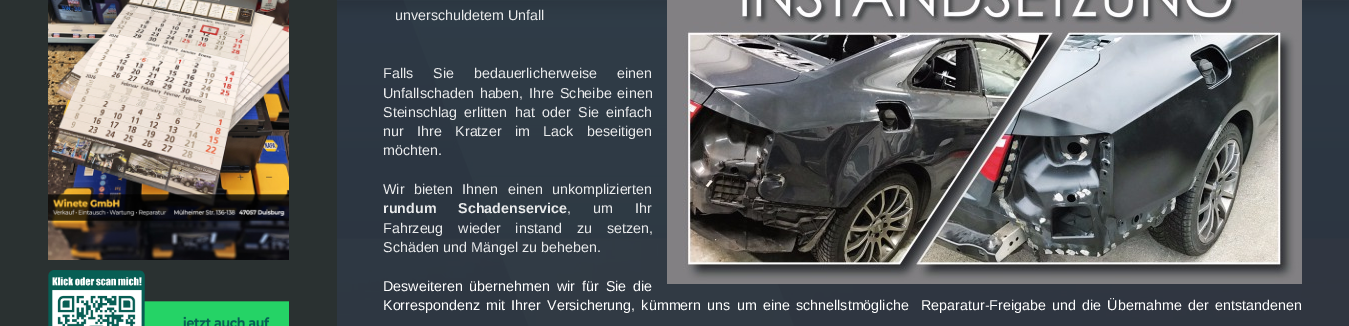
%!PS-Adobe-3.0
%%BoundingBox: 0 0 1349 326
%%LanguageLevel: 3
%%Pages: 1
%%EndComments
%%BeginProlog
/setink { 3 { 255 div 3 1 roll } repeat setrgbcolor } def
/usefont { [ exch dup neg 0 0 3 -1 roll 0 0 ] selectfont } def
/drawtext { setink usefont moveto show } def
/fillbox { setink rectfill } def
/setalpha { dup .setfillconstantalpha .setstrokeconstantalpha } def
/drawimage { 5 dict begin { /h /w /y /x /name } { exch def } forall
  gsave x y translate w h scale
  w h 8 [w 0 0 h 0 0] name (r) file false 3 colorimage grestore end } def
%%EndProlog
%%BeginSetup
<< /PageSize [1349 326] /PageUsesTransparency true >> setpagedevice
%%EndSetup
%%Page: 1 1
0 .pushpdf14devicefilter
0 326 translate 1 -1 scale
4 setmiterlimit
0 0 1349 326 255 255 255 fillbox
(assets/img1.rgb) 337 0 1012 326 drawimage
0 0 337 326 42 49 49 fillbox
(assets/img2.rgb) 48 0 241 260 drawimage
(assets/img3.rgb) 48 270 241 56 drawimage
0.9 setalpha
337 0 1012 326 44 53 65 fillbox
1 setalpha
(assets/img4.rgb) 667 0 635 284 drawimage
(unverschuldetem Unfall) 395 20 /LiberationSans-Regular 14.3 234 235 236 drawtext
383 78 moveto 16 0 32 (Falls Sie bedauerlicherweise einen) widthshow
383 98 moveto 2 0 32 (Unfallschaden haben, Ihre Scheibe einen) widthshow
383 117 moveto 3.5 0 32 (Steinschlag erlitten hat oder Sie einfach) widthshow
383 136 moveto 9.5 0 32 (nur Ihre Kratzer im Lack beseitigen) widthshow
(möchten.) 383 155 /LiberationSans-Regular 14.3 234 235 236 drawtext
383 194 moveto 5.5 0 32 (Wir bieten Ihnen einen unkomplizierten) widthshow
/LiberationSans-Bold 14.3 usefont
383 213 moveto 18 0 32 (rundum Schadenservice) widthshow
/LiberationSans-Regular 14.3 usefont
567 213 moveto 18 0 32 (, um Ihr) widthshow
383 233 moveto 11 0 32 (Fahrzeug wieder instand zu setzen,) widthshow
(Schäden und Mängel zu beheben.) 383 252 /LiberationSans-Regular 14.3 234 235 236 drawtext
255 255 255 setink
383 291 moveto 3 0 32 (Desweiteren übernehmen wir für Sie die) widthshow
383 310 moveto 2.25 0 32 (Korrespondenz mit Ihrer Versicherung, kümmern uns um eine schnellstmögliche  Reparatur-Freigabe und die Übernahme der entstandenen) widthshow
.poppdf14devicefilter showpage
%%EOF
